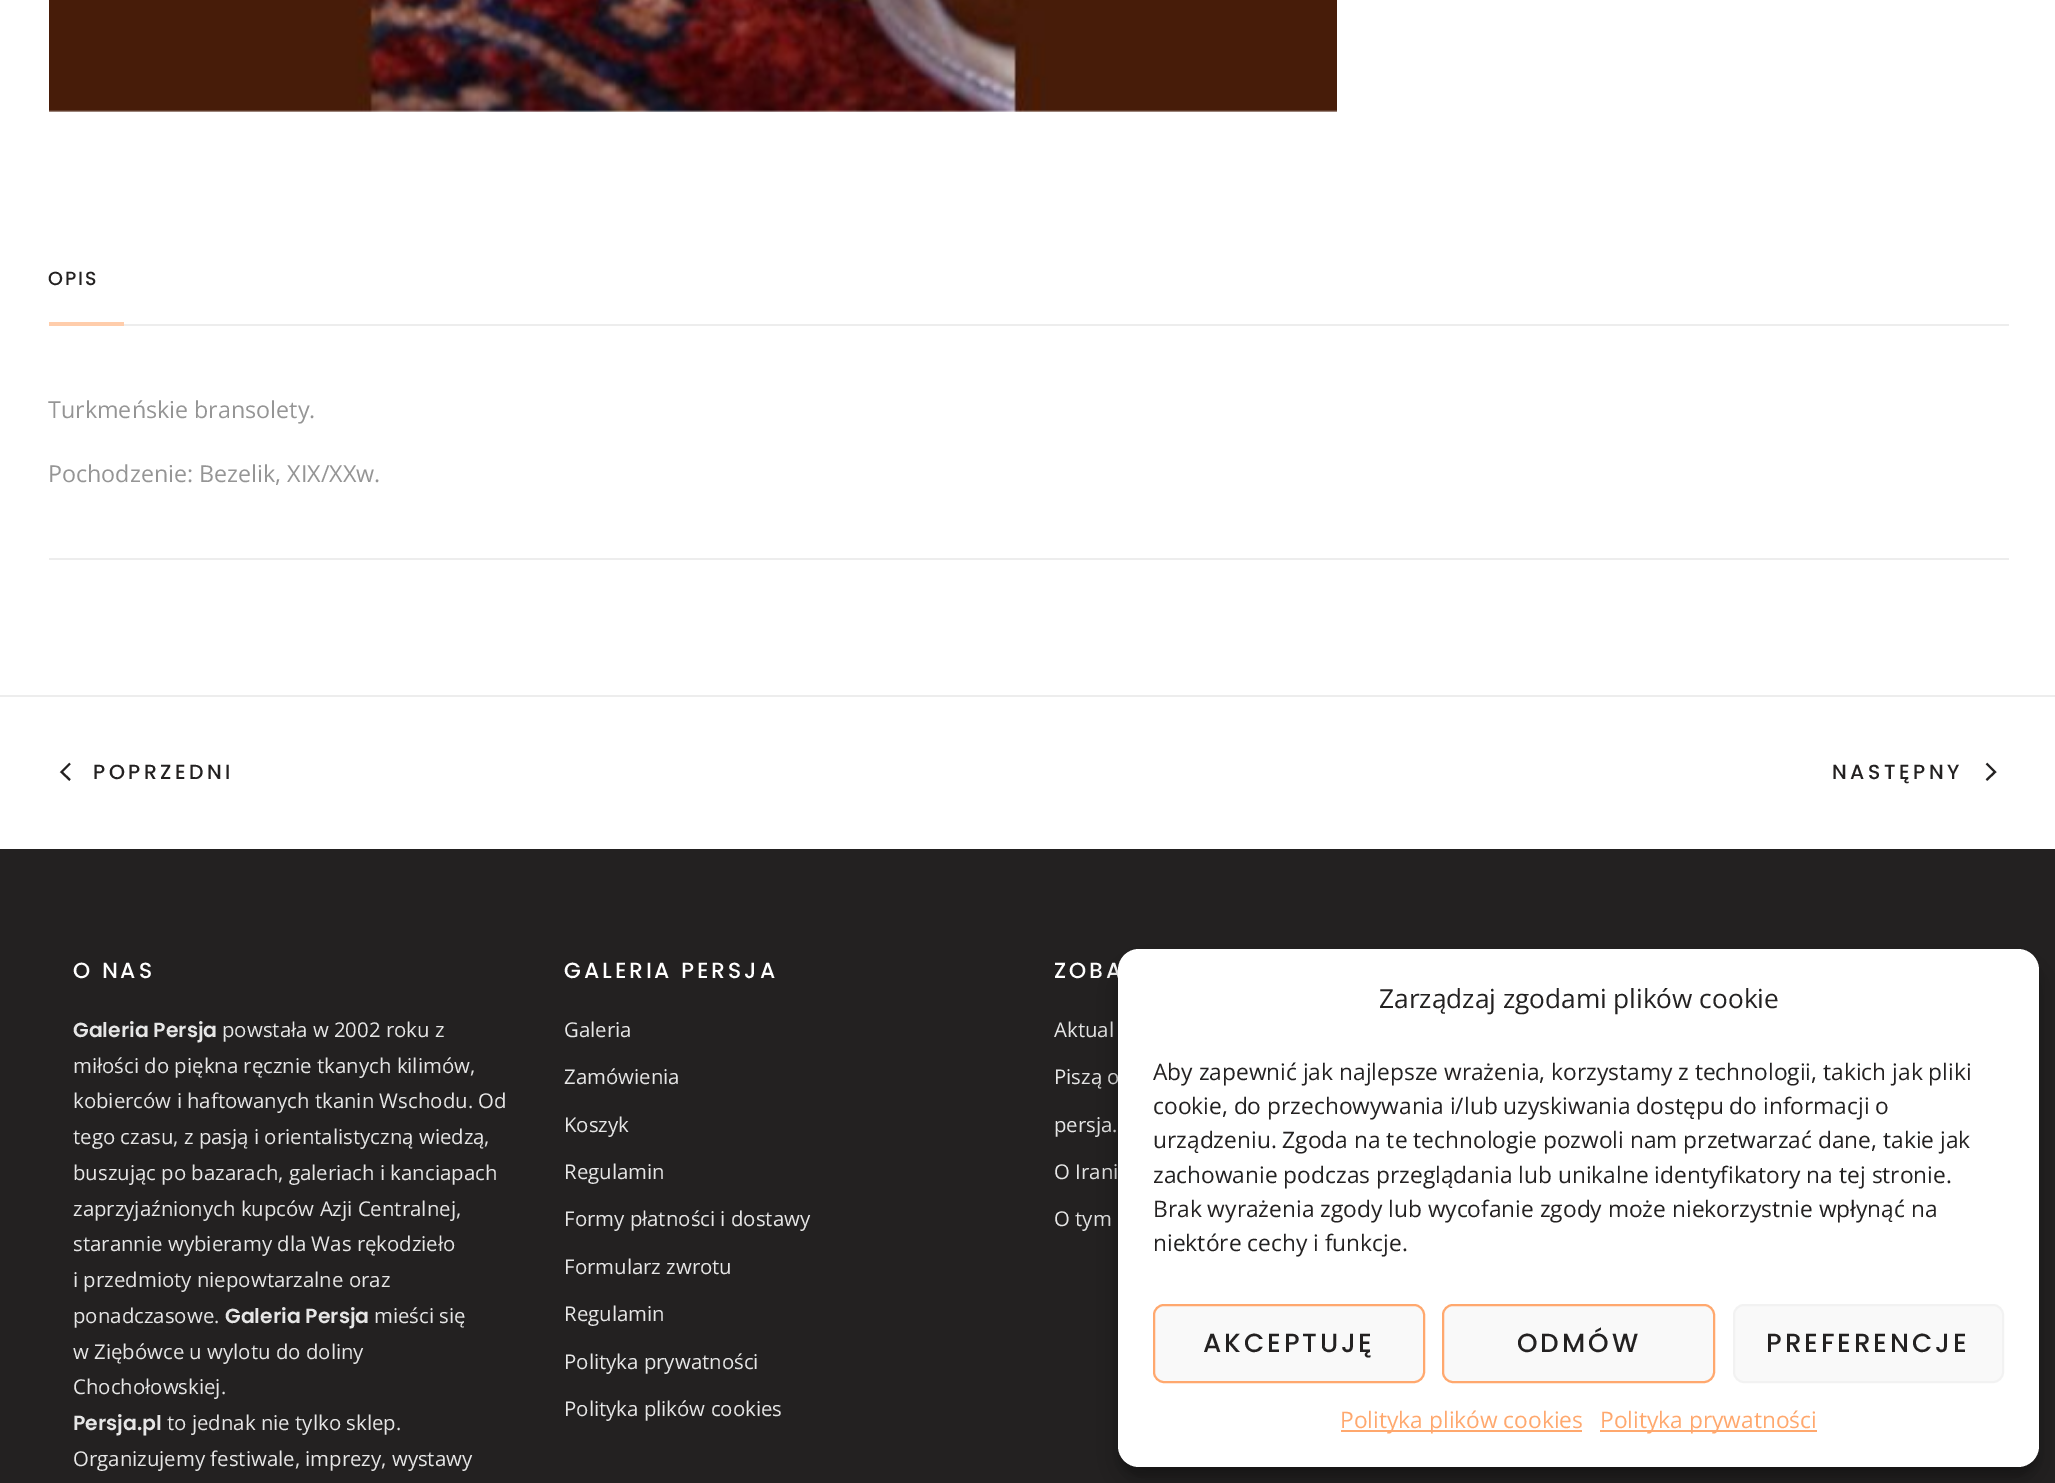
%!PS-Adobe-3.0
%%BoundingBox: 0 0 2055 1483
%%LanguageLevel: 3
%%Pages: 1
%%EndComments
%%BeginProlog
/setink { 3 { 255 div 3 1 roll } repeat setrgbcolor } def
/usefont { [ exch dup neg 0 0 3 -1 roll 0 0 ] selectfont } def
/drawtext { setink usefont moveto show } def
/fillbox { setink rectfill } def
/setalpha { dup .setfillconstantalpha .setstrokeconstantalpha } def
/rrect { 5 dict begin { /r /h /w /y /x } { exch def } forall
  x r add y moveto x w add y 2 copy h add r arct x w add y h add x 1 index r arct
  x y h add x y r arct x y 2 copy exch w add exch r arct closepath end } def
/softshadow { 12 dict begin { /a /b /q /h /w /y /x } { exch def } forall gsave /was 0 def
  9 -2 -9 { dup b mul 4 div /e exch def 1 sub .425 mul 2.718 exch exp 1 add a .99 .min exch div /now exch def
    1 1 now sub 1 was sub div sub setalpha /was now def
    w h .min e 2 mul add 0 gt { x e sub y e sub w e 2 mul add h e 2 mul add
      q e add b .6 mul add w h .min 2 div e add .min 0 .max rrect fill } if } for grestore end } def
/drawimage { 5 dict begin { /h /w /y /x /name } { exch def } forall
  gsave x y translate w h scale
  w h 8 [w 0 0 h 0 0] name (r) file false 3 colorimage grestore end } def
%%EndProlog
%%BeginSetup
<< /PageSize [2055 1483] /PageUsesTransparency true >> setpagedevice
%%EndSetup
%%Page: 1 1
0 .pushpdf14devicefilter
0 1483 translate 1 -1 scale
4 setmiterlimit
0 0 2055 1483 255 255 255 fillbox
(assets/img1.rgb) 49 0 1288 112 drawimage
49 322 75 4 255 205 171 fillbox
/Poppins-Medium 19 usefont
35 33 33 setink
48 285 moveto 2 0 (OPIS) ashow
124 324 1885 2 237 237 237 fillbox
49 558 1960 2 237 237 237 fillbox
(Turkmeńskie bransolety.) 48 418 /OpenSans-Regular 23.3 149 149 149 drawtext
(Pochodzenie: Bezelik, XIX/XXw.) 48 482 /OpenSans-Regular 23.3 149 149 149 drawtext
0 695 2055 2 237 237 237 fillbox
35 33 33 setink
2.1 setlinewidth
70 780 moveto 61.5 772 lineto 70 763.5 lineto stroke
/Poppins-Medium 20.4 usefont
93 779 moveto 3.5 0 (POPRZEDNI) ashow
1832 779 moveto 3.5 0 (NASTĘPNY) ashow
1986.5 780 moveto 1995 772 lineto 1986.5 763.5 lineto stroke
0 849 2055 634 35 33 33 fillbox
/Poppins-Medium 21.9 usefont
255 255 255 setink
73 978 moveto 2.9 0 (O NAS) ashow
(Galeria Persja) 73 1037 /Poppins-SemiBold 20.4 230 230 230 drawtext
(powstała w 2002 roku z) 222 1037 /OpenSans-Regular 20.4 230 230 230 drawtext
(miłości do piękna ręcznie tkanych kilimów,) 73 1073 /OpenSans-Regular 20.4 230 230 230 drawtext
(kobierców i haftowanych tkanin Wschodu. Od) 73 1108 /OpenSans-Regular 20.4 230 230 230 drawtext
(tego czasu, z pasją i orientalistyczną wiedzą,) 73 1144 /OpenSans-Regular 20.4 230 230 230 drawtext
(buszując po bazarach, galeriach i kanciapach) 73 1180 /OpenSans-Regular 20.4 230 230 230 drawtext
(zaprzyjaźnionych kupców Azji Centralnej,) 73 1216 /OpenSans-Regular 20.4 230 230 230 drawtext
(starannie wybieramy dla Was rękodzieło) 73 1251 /OpenSans-Regular 20.4 230 230 230 drawtext
(i przedmioty niepowtarzalne oraz) 73 1287 /OpenSans-Regular 20.4 230 230 230 drawtext
(ponadczasowe.) 73 1323 /OpenSans-Regular 20.4 230 230 230 drawtext
(Galeria Persja) 225 1323 /Poppins-SemiBold 20.4 230 230 230 drawtext
(mieści się) 374 1323 /OpenSans-Regular 20.4 230 230 230 drawtext
(w Ziębówce u wylotu do doliny) 73 1359 /OpenSans-Regular 20.4 230 230 230 drawtext
(Chochołowskiej.) 73 1394 /OpenSans-Regular 20.4 230 230 230 drawtext
(Persja.pl) 73 1430 /Poppins-SemiBold 20.4 230 230 230 drawtext
(to jednak nie tylko sklep.) 167 1430 /OpenSans-Regular 20.4 230 230 230 drawtext
(Organizujemy festiwale, imprezy, wystawy) 73 1466 /OpenSans-Regular 20.4 230 230 230 drawtext
/Poppins-Medium 21.9 usefont
255 255 255 setink
564 978 moveto 2.9 0 (GALERIA PERSJA) ashow
(Galeria) 564 1037 /OpenSans-Regular 20.4 230 230 230 drawtext
(Zamówienia) 564 1084 /OpenSans-Regular 20.4 230 230 230 drawtext
(Koszyk) 564 1132 /OpenSans-Regular 20.4 230 230 230 drawtext
(Regulamin) 564 1179 /OpenSans-Regular 20.4 230 230 230 drawtext
(Formy płatności i dostawy) 564 1226 /OpenSans-Regular 20.4 230 230 230 drawtext
(Formularz zwrotu) 564 1274 /OpenSans-Regular 20.4 230 230 230 drawtext
(Regulamin) 564 1321 /OpenSans-Regular 20.4 230 230 230 drawtext
(Polityka prywatności) 564 1369 /OpenSans-Regular 20.4 230 230 230 drawtext
(Polityka plików cookies) 564 1416 /OpenSans-Regular 20.4 230 230 230 drawtext
/Poppins-Medium 21.9 usefont
255 255 255 setink
1054 978 moveto 2.9 0 (ZOBA) ashow
(Aktual) 1054 1037 /OpenSans-Regular 20.4 230 230 230 drawtext
(Piszą o) 1054 1084 /OpenSans-Regular 20.4 230 230 230 drawtext
(persja.) 1054 1132 /OpenSans-Regular 20.4 230 230 230 drawtext
(O Irani) 1054 1179 /OpenSans-Regular 20.4 230 230 230 drawtext
(O tym) 1054 1226 /OpenSans-Regular 20.4 230 230 230 drawtext
0 0 0 setink
1118 959 921 518 21 5 0.23 softshadow
1118 966 921 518 21 17.5 0.19 softshadow
255 255 255 setink
1118 949 921 518 21 rrect fill
(Zarządzaj zgodami plików cookie) 1379 1008 /OpenSans-Regular 26.25 35 33 33 drawtext
(Aby zapewnić jak najlepsze wrażenia, korzystamy z technologii, takich jak pliki) 1153 1080 /OpenSans-Regular 22.75 35 33 33 drawtext
(cookie, do przechowywania i/lub uzyskiwania dostępu do informacji o) 1153 1114 /OpenSans-Regular 22.75 35 33 33 drawtext
(urządzeniu. Zgoda na te technologie pozwoli nam przetwarzać dane, takie jak) 1153 1148 /OpenSans-Regular 22.75 35 33 33 drawtext
(zachowanie podczas przeglądania lub unikalne identyfikatory na tej stronie.) 1153 1183 /OpenSans-Regular 22.75 35 33 33 drawtext
(Brak wyrażenia zgody lub wycofanie zgody może niekorzystnie wpłynąć na) 1153 1217 /OpenSans-Regular 22.75 35 33 33 drawtext
(niektóre cechy i funkcje.) 1153 1251 /OpenSans-Regular 22.75 35 33 33 drawtext
249 249 249 setink
1154 1305 270 77 10 rrect gsave fill grestore
255 168 110 setink
2 setlinewidth
stroke
/Poppins-Medium 26.25 usefont
35 33 33 setink
1203 1352 moveto 2.9 0 (AKCEPTUJĘ) ashow
249 249 249 setink
1443 1305 271 77 10 rrect gsave fill grestore
255 168 110 setink
stroke
35 33 33 setink
1517 1352 moveto 2.9 0 (ODMÓW) ashow
249 249 249 setink
1734 1305 269 77 10 rrect gsave fill grestore
242 242 242 setink
stroke
35 33 33 setink
1766 1352 moveto 2.9 0 (PREFERENCJE) ashow
1341 1430 241 2 255 168 110 fillbox
(Polityka plików cookies) 1340 1428 /OpenSans-Regular 22.75 255 168 110 drawtext
1600 1430 217 2 255 168 110 fillbox
(Polityka prywatności) 1600 1428 /OpenSans-Regular 22.75 255 168 110 drawtext
.poppdf14devicefilter showpage
%%EOF
